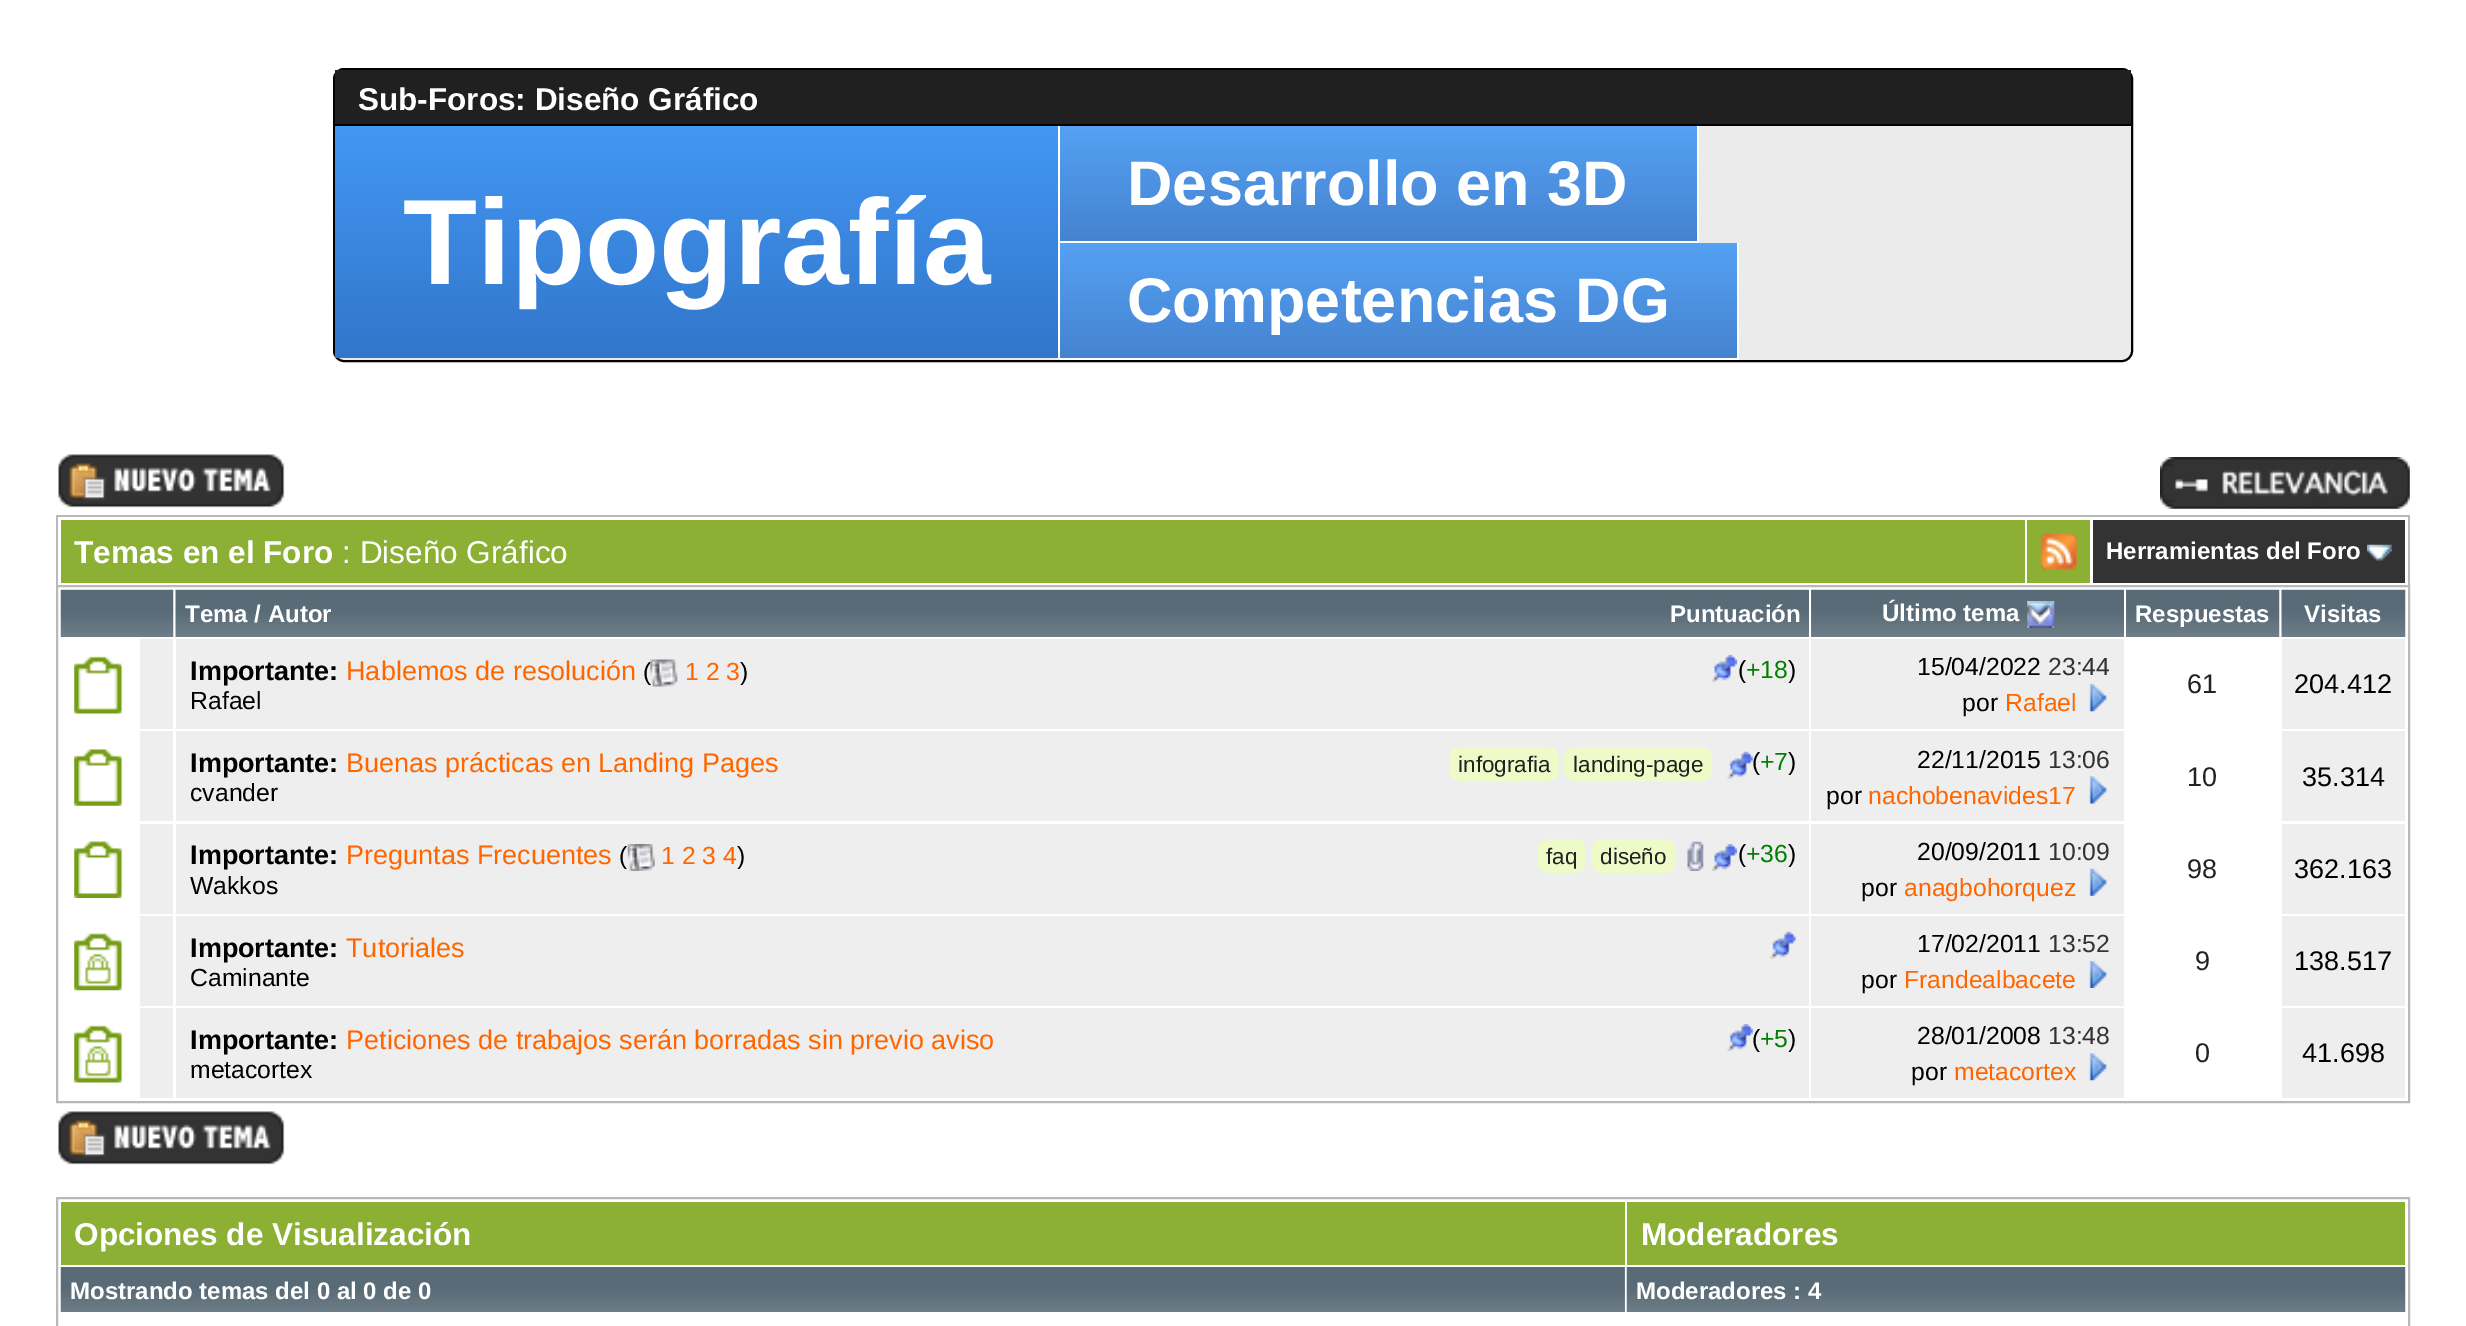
%!PS-Adobe-3.0
%%BoundingBox: 0 0 2466 1326
%%LanguageLevel: 3
%%Pages: 1
%%EndComments
%%BeginProlog
/setink { 3 { 255 div 3 1 roll } repeat setrgbcolor } def
/usefont { [ exch dup neg 0 0 3 -1 roll 0 0 ] selectfont } def
/drawtext { setink usefont moveto show } def
/fillbox { setink rectfill } def
/rrect { 5 dict begin { /r /h /w /y /x } { exch def } forall
  x r add y moveto x w add y 2 copy h add r arct x w add y h add x 1 index r arct
  x y h add x y r arct x y 2 copy exch w add exch r arct closepath end } def
/drawimage { 5 dict begin { /h /w /y /x /name } { exch def } forall
  gsave x y translate w h scale
  w h 8 [w 0 0 h 0 0] name (r) file false 3 colorimage grestore end } def
%%EndProlog
%%BeginSetup
<< /PageSize [2466 1326] >> setpagedevice
%%EndSetup
%%Page: 1 1
0 1326 translate 1 -1 scale
4 setmiterlimit
0 0 2466 1326 255 255 255 fillbox
235 235 235 setink
334 69 1798 292 10 rrect gsave fill grestore
0 0 0 setink
2 setlinewidth
stroke
335 70 1796 54 32 32 32 fillbox
335 124 1796 2 0 0 0 fillbox
(Sub-Foros: Diseño Gráfico) 358 110 /LiberationSans-Bold 31.5 255 255 255 drawtext
gsave 1060 126 moveto 1697 126 lineto 1697 241 lineto 1060 241 lineto closepath clip newpath
<< /ShadingType 2 /ColorSpace /DeviceRGB /Coords [1060 126 1060 241] /Extend [true true] /Function << /FunctionType 2 /Domain [0 1] /C0 [0.333 0.631 0.953] /C1 [0.271 0.514 0.816] /N 1 >> >> shfill grestore
1697 126 2 117 255 255 255 fillbox
1060 241 639 2 255 255 255 fillbox
(Desarrollo en 3D) 1127 205 /LiberationSans-Bold 63 255 255 255 drawtext
gsave 335 126 moveto 1058 126 lineto 1058 358 lineto 335 358 lineto closepath clip newpath
<< /ShadingType 2 /ColorSpace /DeviceRGB /Coords [335 126 335 358] /Extend [true true] /Function << /FunctionType 2 /Domain [0 1] /C0 [0.263 0.592 0.953] /C1 [0.192 0.463 0.796] /N 1 >> >> shfill grestore
1058 126 2 232 255 255 255 fillbox
(Tipografía) 403 284 /LiberationSans-Bold 121.5 255 255 255 drawtext
gsave 1060 243 moveto 1737 243 lineto 1737 358 lineto 1060 358 lineto closepath clip newpath
<< /ShadingType 2 /ColorSpace /DeviceRGB /Coords [1060 243 1060 358] /Extend [true true] /Function << /FunctionType 2 /Domain [0 1] /C0 [0.333 0.631 0.953] /C1 [0.271 0.514 0.816] /N 1 >> >> shfill grestore
1737 243 2 117 255 255 255 fillbox
1060 358 679 2 255 255 255 fillbox
(Competencias DG) 1127 322 /LiberationSans-Bold 63 255 255 255 drawtext
(assets/img1.rgb) 58 454 227 54 drawimage
(assets/img2.rgb) 2160 457 250 52 drawimage
56 515 2354 2 185 185 185 fillbox
2408 515 2 70 185 185 185 fillbox
56 515 2 70 185 185 185 fillbox
61 520 1964 63 139 176 51 fillbox
(Temas en el Foro) 74 563 /LiberationSans-Bold 31.5 255 255 255 drawtext
(: Diseño Gráfico) 342 563 /LiberationSans-Regular 31.5 255 255 255 drawtext
2027 520 63 63 139 176 51 fillbox
(assets/img3.rgb) 2040 533 37 37 drawimage
2093 520 312 63 51 51 51 fillbox
(Herramientas del Foro) 2106 559 /LiberationSans-Bold 24 255 255 255 drawtext
(assets/img4.rgb) 2367 544 25 17 drawimage
185 185 185 setink
57 586 2352 516 rectstroke
(assets/img5.rgb) 60 589 114 48 drawimage
(assets/img6.rgb) 175 589 1634 48 drawimage
(Tema / Autor) 185 622 /LiberationSans-Bold 24 255 255 255 drawtext
(Puntuación) 1670 622 /LiberationSans-Bold 24 255 255 255 drawtext
(assets/img7.rgb) 1811 589 313 48 drawimage
(Último tema) 1882 621 /LiberationSans-Bold 24 255 255 255 drawtext
(assets/img8.rgb) 2027 601 28 27 drawimage
(assets/img9.rgb) 2126 589 154 48 drawimage
(Respuestas) 2135 622 /LiberationSans-Bold 24 255 255 255 drawtext
(assets/img10.rgb) 2281 589 125 48 drawimage
(Visitas) 2304 622 /LiberationSans-Bold 24 255 255 255 drawtext
(assets/img11.rgb) 74 656 49 58 drawimage
140 639 33 90 238 238 238 fillbox
176 639 1633 90 238 238 238 fillbox
(Importante:) 190 680 /LiberationSans-Bold 27 0 0 0 drawtext
(Hablemos de resolución) 346 680 /LiberationSans-Regular 27 255 102 0 drawtext
(\() 643 680 /LiberationSans-Regular 24.75 0 0 0 drawtext
(assets/img12.rgb) 650 659 28 28 drawimage
(1 2 3) 685 680 /LiberationSans-Regular 24.75 255 102 0 drawtext
(\)) 740 680 /LiberationSans-Regular 24.75 0 0 0 drawtext
(assets/img13.rgb) 1711 655 26 27 drawimage
(\() 1738 678 /LiberationSans-Regular 24.75 0 0 0 drawtext
(+18) 1746 678 /LiberationSans-Regular 24.75 0 128 0 drawtext
(\)) 1788 678 /LiberationSans-Regular 24.75 0 0 0 drawtext
(Rafael) 190 709 /LiberationSans-Regular 24.75 0 0 0 drawtext
1811 639 313 90 238 238 238 fillbox
(15/04/2022) 1917 675 /LiberationSans-Regular 24.75 0 0 0 drawtext
(23:44) 2048 675 /LiberationSans-Regular 24.75 51 51 51 drawtext
(por) 1962 711 /LiberationSans-Regular 24.75 0 0 0 drawtext
(Rafael) 2005 711 /LiberationSans-Regular 24.75 255 102 0 drawtext
(assets/img14.rgb) 2089 684 18 28 drawimage
(61) 2187 693 /LiberationSans-Regular 27 34 34 34 drawtext
2282 639 123 90 238 238 238 fillbox
(204.412) 2294 693 /LiberationSans-Regular 27 0 0 0 drawtext
(assets/img15.rgb) 74 749 49 57 drawimage
140 731 33 90 238 238 238 fillbox
176 731 1633 90 238 238 238 fillbox
(Importante:) 190 772 /LiberationSans-Bold 27 0 0 0 drawtext
(Buenas prácticas en Landing Pages) 346 772 /LiberationSans-Regular 27 255 102 0 drawtext
238 251 201 setink
1449 747 110 34 11 rrect fill
(infografia) 1458 772 /LiberationSans-Regular 22.5 34 34 34 drawtext
238 251 201 setink
1564 747 148 34 11 rrect fill
(landing-page) 1573 772 /LiberationSans-Regular 22.5 34 34 34 drawtext
(assets/img16.rgb) 1727 751 26 28 drawimage
(\() 1752 770 /LiberationSans-Regular 24.75 0 0 0 drawtext
(+7) 1760 770 /LiberationSans-Regular 24.75 0 128 0 drawtext
(\)) 1788 770 /LiberationSans-Regular 24.75 0 0 0 drawtext
(cvander) 190 801 /LiberationSans-Regular 24.75 0 0 0 drawtext
1811 731 313 90 238 238 238 fillbox
(22/11/2015) 1917 768 /LiberationSans-Regular 24.75 0 0 0 drawtext
(13:06) 2048 768 /LiberationSans-Regular 24.75 51 51 51 drawtext
(por) 1826 804 /LiberationSans-Regular 24.75 0 0 0 drawtext
(nachobenavides17) 1868 804 /LiberationSans-Regular 24.75 255 102 0 drawtext
(assets/img17.rgb) 2089 776 18 28 drawimage
(10) 2187 786 /LiberationSans-Regular 27 34 34 34 drawtext
2282 731 123 90 238 238 238 fillbox
(35.314) 2302 786 /LiberationSans-Regular 27 0 0 0 drawtext
(assets/img18.rgb) 74 841 49 57 drawimage
140 824 33 90 238 238 238 fillbox
176 824 1633 90 238 238 238 fillbox
(Importante:) 190 864 /LiberationSans-Bold 27 0 0 0 drawtext
(Preguntas Frecuentes) 346 864 /LiberationSans-Regular 27 255 102 0 drawtext
(\() 619 864 /LiberationSans-Regular 24.75 0 0 0 drawtext
(assets/img19.rgb) 627 844 28 27 drawimage
(1 2 3 4) 661 864 /LiberationSans-Regular 24.75 255 102 0 drawtext
(\)) 737 864 /LiberationSans-Regular 24.75 0 0 0 drawtext
238 251 201 setink
1537 839 49 34 11 rrect fill
(faq) 1546 864 /LiberationSans-Regular 22.5 34 34 34 drawtext
238 251 201 setink
1591 839 85 34 11 rrect fill
(diseño) 1600 864 /LiberationSans-Regular 22.5 34 34 34 drawtext
(assets/img20.rgb) 1687 841 17 30 drawimage
(assets/img13.rgb) 1711 844 26 27 drawimage
(\() 1738 862 /LiberationSans-Regular 24.75 0 0 0 drawtext
(+36) 1746 862 /LiberationSans-Regular 24.75 0 128 0 drawtext
(\)) 1788 862 /LiberationSans-Regular 24.75 0 0 0 drawtext
(Wakkos) 190 894 /LiberationSans-Regular 24.75 0 0 0 drawtext
1811 824 313 90 238 238 238 fillbox
(20/09/2011) 1917 860 /LiberationSans-Regular 24.75 0 0 0 drawtext
(10:09) 2048 860 /LiberationSans-Regular 24.75 51 51 51 drawtext
(por) 1861 896 /LiberationSans-Regular 24.75 0 0 0 drawtext
(anagbohorquez) 1904 896 /LiberationSans-Regular 24.75 255 102 0 drawtext
(assets/img21.rgb) 2089 868 18 28 drawimage
(98) 2187 878 /LiberationSans-Regular 27 34 34 34 drawtext
2282 824 123 90 238 238 238 fillbox
(362.163) 2294 878 /LiberationSans-Regular 27 0 0 0 drawtext
(assets/img22.rgb) 74 933 49 58 drawimage
140 916 33 90 238 238 238 fillbox
176 916 1633 90 238 238 238 fillbox
(Importante:) 190 957 /LiberationSans-Bold 27 0 0 0 drawtext
(Tutoriales) 346 957 /LiberationSans-Regular 27 255 102 0 drawtext
(assets/img23.rgb) 1770 931 26 28 drawimage
(Caminante) 190 986 /LiberationSans-Regular 24.75 0 0 0 drawtext
1811 916 313 90 238 238 238 fillbox
(17/02/2011) 1917 952 /LiberationSans-Regular 24.75 0 0 0 drawtext
(13:52) 2048 952 /LiberationSans-Regular 24.75 51 51 51 drawtext
(por) 1861 988 /LiberationSans-Regular 24.75 0 0 0 drawtext
(Frandealbacete) 1904 988 /LiberationSans-Regular 24.75 255 102 0 drawtext
(assets/img24.rgb) 2089 961 18 27 drawimage
(9) 2195 970 /LiberationSans-Regular 27 34 34 34 drawtext
2282 916 123 90 238 238 238 fillbox
(138.517) 2294 970 /LiberationSans-Regular 27 0 0 0 drawtext
(assets/img25.rgb) 74 1025 49 58 drawimage
140 1008 33 90 238 238 238 fillbox
176 1008 1633 90 238 238 238 fillbox
(Importante:) 190 1049 /LiberationSans-Bold 27 0 0 0 drawtext
(Peticiones de trabajos serán borradas sin previo aviso) 346 1049 /LiberationSans-Regular 27 255 102 0 drawtext
(assets/img26.rgb) 1727 1024 26 27 drawimage
(\() 1752 1047 /LiberationSans-Regular 24.75 0 0 0 drawtext
(+5) 1760 1047 /LiberationSans-Regular 24.75 0 128 0 drawtext
(\)) 1788 1047 /LiberationSans-Regular 24.75 0 0 0 drawtext
(metacortex) 190 1078 /LiberationSans-Regular 24.75 0 0 0 drawtext
1811 1008 313 90 238 238 238 fillbox
(28/01/2008) 1917 1044 /LiberationSans-Regular 24.75 0 0 0 drawtext
(13:48) 2048 1044 /LiberationSans-Regular 24.75 51 51 51 drawtext
(por) 1911 1080 /LiberationSans-Regular 24.75 0 0 0 drawtext
(metacortex) 1954 1080 /LiberationSans-Regular 24.75 255 102 0 drawtext
(assets/img27.rgb) 2089 1053 18 28 drawimage
(0) 2195 1062 /LiberationSans-Regular 27 34 34 34 drawtext
2282 1008 123 90 238 238 238 fillbox
(41.698) 2302 1062 /LiberationSans-Regular 27 0 0 0 drawtext
(assets/img1.rgb) 58 1111 227 54 drawimage
185 185 185 setink
57 1198 2352 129 rectstroke
61 1202 1564 63 139 176 51 fillbox
(Opciones de Visualización) 74 1245 /LiberationSans-Bold 31.5 255 255 255 drawtext
1627 1202 778 63 139 176 51 fillbox
(Moderadores) 1641 1245 /LiberationSans-Bold 31.5 255 255 255 drawtext
1624 1267 1 45 118 132 142 fillbox
(assets/img28.rgb) 60 1267 1565 45 drawimage
(Mostrando temas del 0 al 0 de 0) 70 1299 /LiberationSans-Bold 24 255 255 255 drawtext
(assets/img29.rgb) 1626 1267 780 45 drawimage
(Moderadores : 4) 1636 1299 /LiberationSans-Bold 24 255 255 255 drawtext
showpage
%%EOF
